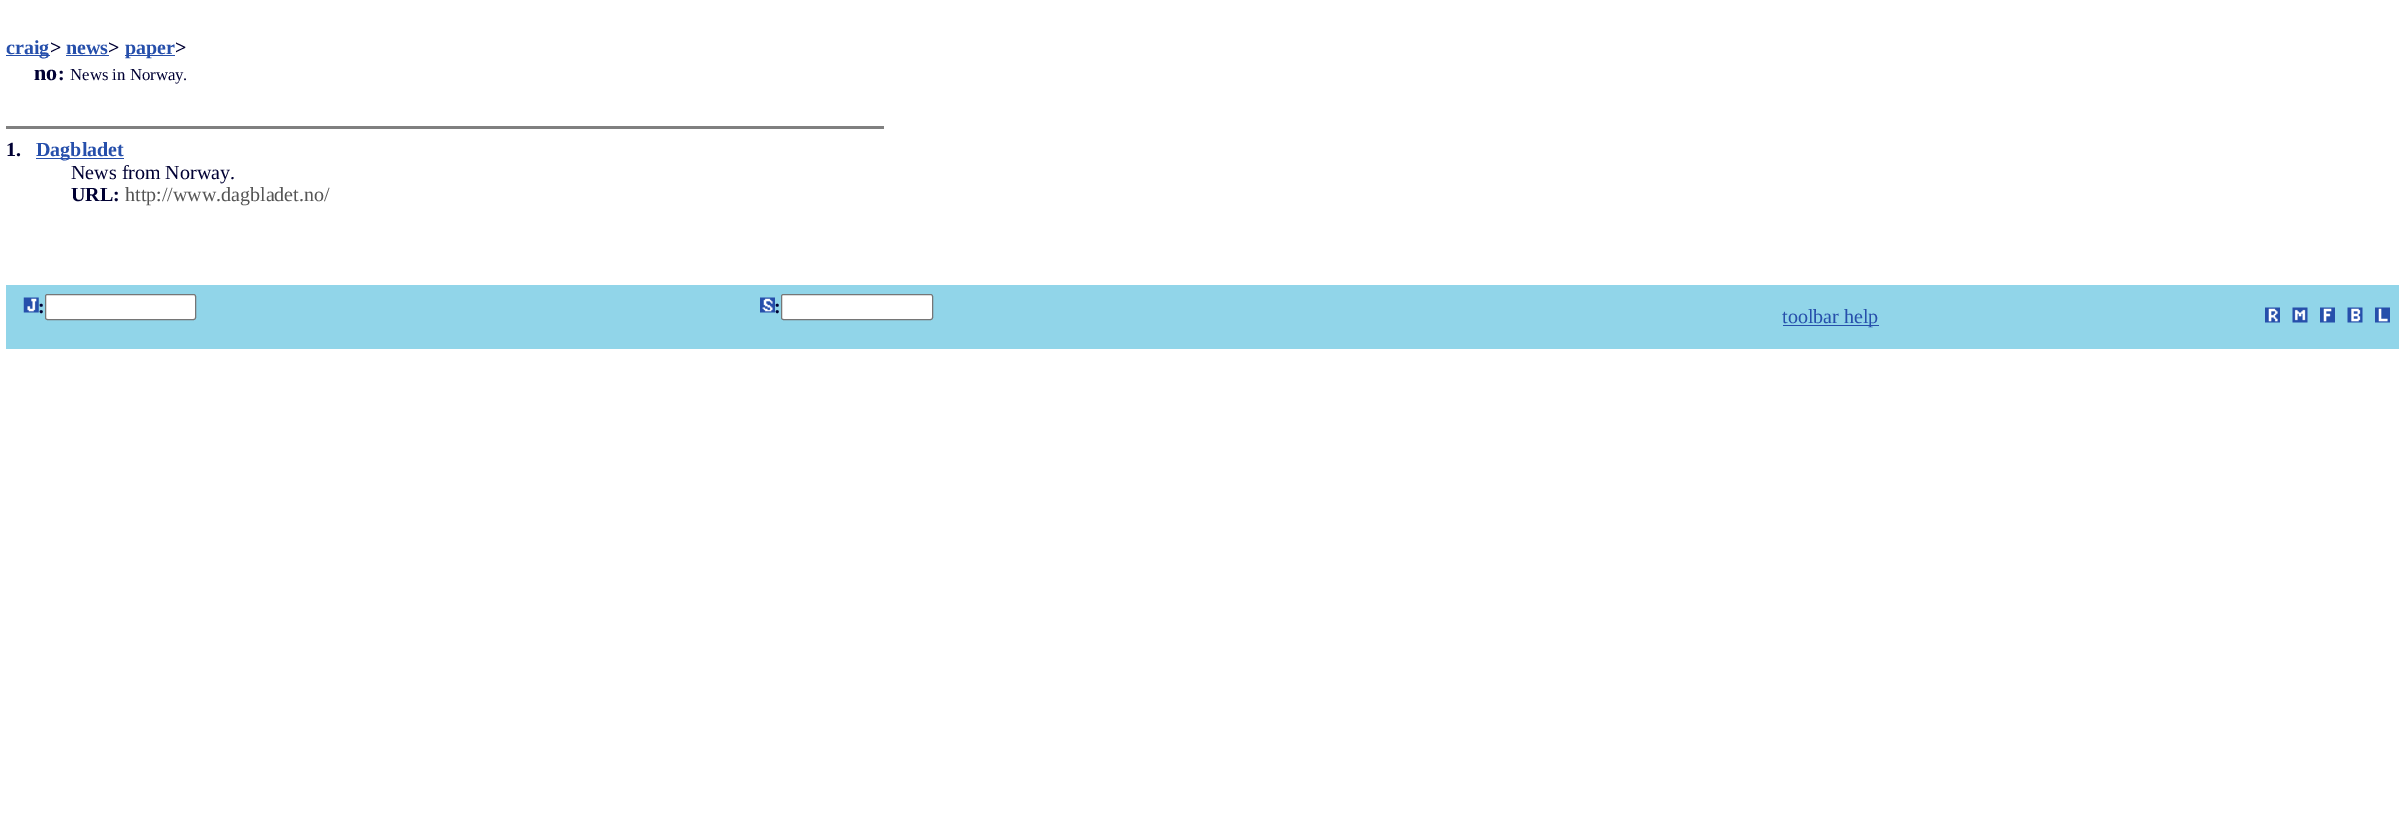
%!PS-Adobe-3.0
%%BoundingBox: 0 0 2405 820
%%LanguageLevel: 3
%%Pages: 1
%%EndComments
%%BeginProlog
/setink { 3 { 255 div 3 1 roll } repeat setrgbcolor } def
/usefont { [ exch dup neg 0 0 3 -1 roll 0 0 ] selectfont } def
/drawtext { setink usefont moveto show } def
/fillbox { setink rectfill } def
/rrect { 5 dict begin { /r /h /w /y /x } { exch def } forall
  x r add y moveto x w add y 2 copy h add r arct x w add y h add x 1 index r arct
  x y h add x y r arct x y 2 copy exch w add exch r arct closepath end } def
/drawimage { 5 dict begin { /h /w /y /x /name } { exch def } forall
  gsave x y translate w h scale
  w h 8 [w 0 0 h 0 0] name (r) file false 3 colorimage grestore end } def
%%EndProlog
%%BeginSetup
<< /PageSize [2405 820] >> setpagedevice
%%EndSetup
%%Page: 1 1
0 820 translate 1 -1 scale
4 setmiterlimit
0 0 2405 820 255 255 255 fillbox
6 55 44 1 38 79 171 fillbox
(craig) 6 54 /LiberationSerif-Bold 20 38 79 171 drawtext
(>) 50 54 /LiberationSerif-Bold 20 0 0 51 drawtext
(news) 66 54 /LiberationSerif-Bold 20 38 79 171 drawtext
66 55 43 1 38 79 171 fillbox
(>) 108 54 /LiberationSerif-Bold 20 0 0 51 drawtext
125 55 50 1 38 79 171 fillbox
(paper) 125 54 /LiberationSerif-Bold 20 38 79 171 drawtext
(>) 175 54 /LiberationSerif-Bold 20 0 0 51 drawtext
(no) 34 80 /LiberationSerif-Bold 22 0 0 51 drawtext
(:) 58 80 /LiberationSerif-Bold 20 0 0 51 drawtext
(News in Norway.) 70 80 /LiberationSerif-Regular 16.75 0 0 51 drawtext
6 126 878 3 128 128 128 fillbox
(1.) 6 156 /LiberationSerif-Bold 20 0 0 51 drawtext
36 158 88 1 38 79 171 fillbox
(Dagbladet) 36 156 /LiberationSerif-Bold 20 38 79 171 drawtext
(News from Norway.) 71 179 /LiberationSerif-Regular 20 0 0 51 drawtext
(URL:) 71 201 /LiberationSerif-Bold 20 0 0 51 drawtext
(http://www.dagbladet.no/) 125 201 /LiberationSerif-Regular 20 85 85 85 drawtext
6 285 2393 64 145 213 233 fillbox
(assets/img1.rgb) 23 297 16 16 drawimage
(:) 38 313 /LiberationSerif-Bold 20 0 0 51 drawtext
255 255 255 setink
45.5 294.5 150 25 2 rrect gsave fill grestore
118 118 118 setink
stroke
(assets/img2.rgb) 760 297 15 16 drawimage
(:) 774 313 /LiberationSerif-Bold 20 0 0 51 drawtext
255 255 255 setink
781.5 294.5 151 25 2 rrect gsave fill grestore
118 118 118 setink
stroke
1783 325 96 1 38 79 171 fillbox
(toolbar help) 1782 323 /LiberationSerif-Regular 20 38 79 171 drawtext
(assets/img3.rgb) 2265 307 15 16 drawimage
(assets/img4.rgb) 2292 307 16 16 drawimage
(assets/img5.rgb) 2320 307 15 16 drawimage
(assets/img6.rgb) 2347 307 16 16 drawimage
(assets/img7.rgb) 2375 307 15 16 drawimage
showpage
%%EOF
